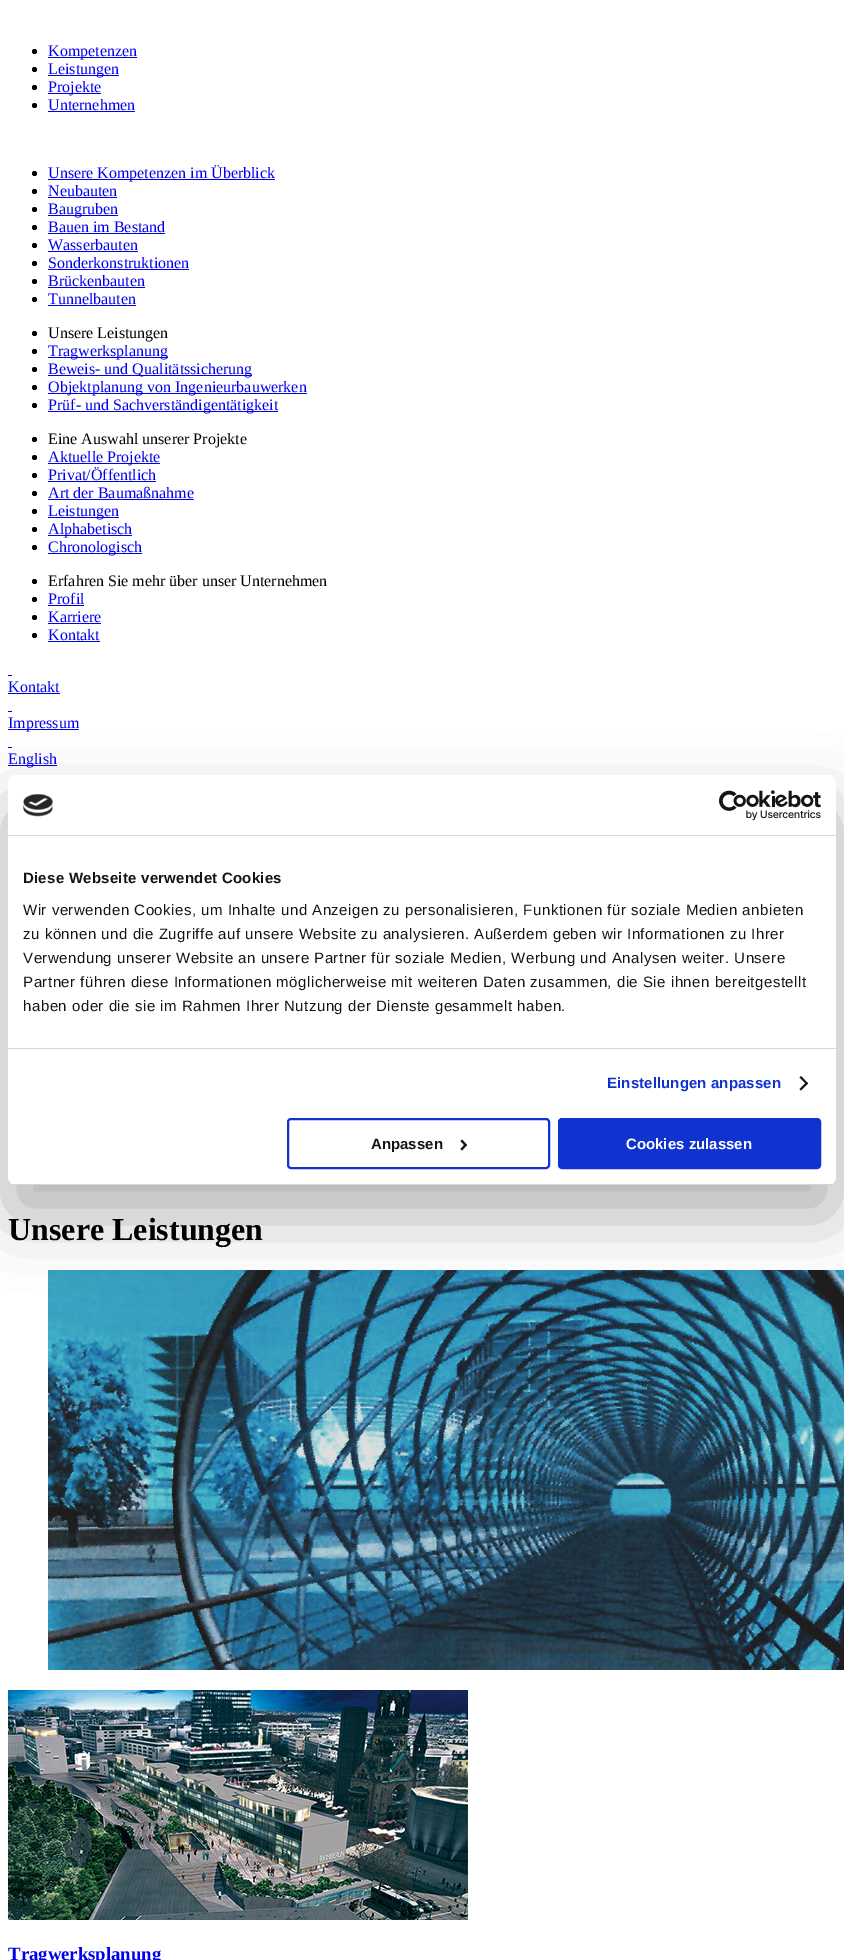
%!PS-Adobe-3.0
%%BoundingBox: 0 0 844 1960
%%LanguageLevel: 3
%%Pages: 1
%%EndComments
%%BeginProlog
/setink { 3 { 255 div 3 1 roll } repeat setrgbcolor } def
/usefont { [ exch dup neg 0 0 3 -1 roll 0 0 ] selectfont } def
/drawtext { setink usefont moveto show } def
/fillbox { setink rectfill } def
/setalpha { dup .setfillconstantalpha .setstrokeconstantalpha } def
/disc { newpath 0 360 arc closepath } def
/rrect { 5 dict begin { /r /h /w /y /x } { exch def } forall
  x r add y moveto x w add y 2 copy h add r arct x w add y h add x 1 index r arct
  x y h add x y r arct x y 2 copy exch w add exch r arct closepath end } def
/softshadow { 12 dict begin { /a /b /q /h /w /y /x } { exch def } forall gsave /was 0 def
  9 -2 -9 { dup b mul 4 div /e exch def 1 sub .425 mul 2.718 exch exp 1 add a .99 .min exch div /now exch def
    1 1 now sub 1 was sub div sub setalpha /was now def
    w h .min e 2 mul add 0 gt { x e sub y e sub w e 2 mul add h e 2 mul add
      q e add b .6 mul add w h .min 2 div e add .min 0 .max rrect fill } if } for grestore end } def
/drawimage { 5 dict begin { /h /w /y /x /name } { exch def } forall
  gsave x y translate w h scale
  w h 8 [w 0 0 h 0 0] name (r) file false 3 colorimage grestore end } def
%%EndProlog
%%BeginSetup
<< /PageSize [844 1960] /PageUsesTransparency true >> setpagedevice
%%EndSetup
%%Page: 1 1
0 .pushpdf14devicefilter
0 1960 translate 1 -1 scale
4 setmiterlimit
0 0 844 1960 255 255 255 fillbox
0 0 0 setink
34.5 51.5 2.5 disc fill
48 57 89 1 0 0 238 fillbox
(Kompetenzen) 48 56 /LiberationSerif-Regular 16 0 0 238 drawtext
0 0 0 setink
34.5 69.5 2.5 disc fill
48 75 71 1 0 0 238 fillbox
(Leistungen) 48 74 /LiberationSerif-Regular 16 0 0 238 drawtext
0 0 0 setink
34.5 87.5 2.5 disc fill
48 93 53 1 0 0 238 fillbox
(Projekte) 48 92 /LiberationSerif-Regular 16 0 0 238 drawtext
0 0 0 setink
34.5 105.5 2.5 disc fill
(Unternehmen) 48 110 /LiberationSerif-Regular 16 0 0 238 drawtext
48 111 87 1 0 0 238 fillbox
0 0 0 setink
34.5 173.5 2.5 disc fill
48 179 227 1 0 0 238 fillbox
(Unsere Kompetenzen im Überblick) 48 178 /LiberationSerif-Regular 16 0 0 238 drawtext
0 0 0 setink
34.5 191.5 2.5 disc fill
(Neubauten) 48 196 /LiberationSerif-Regular 16 0 0 238 drawtext
48 197 69 1 0 0 238 fillbox
0 0 0 setink
34.5 209.5 2.5 disc fill
48 215 70 1 0 0 238 fillbox
(Baugruben) 48 214 /LiberationSerif-Regular 16 0 0 238 drawtext
0 0 0 setink
34.5 227.5 2.5 disc fill
(Bauen im Bestand) 48 232 /LiberationSerif-Regular 16 0 0 238 drawtext
48 233 117 1 0 0 238 fillbox
0 0 0 setink
34.5 245.5 2.5 disc fill
(Wasserbauten) 48 250 /LiberationSerif-Regular 16 0 0 238 drawtext
48 251 90 1 0 0 238 fillbox
0 0 0 setink
34.5 263.5 2.5 disc fill
(Sonderkonstruktionen) 48 268 /LiberationSerif-Regular 16 0 0 238 drawtext
48 269 141 1 0 0 238 fillbox
0 0 0 setink
34.5 281.5 2.5 disc fill
(Brückenbauten) 48 286 /LiberationSerif-Regular 16 0 0 238 drawtext
48 287 97 1 0 0 238 fillbox
0 0 0 setink
34.5 299.5 2.5 disc fill
(Tunnelbauten) 48 304 /LiberationSerif-Regular 16 0 0 238 drawtext
48 305 88 1 0 0 238 fillbox
0 0 0 setink
34.5 333.5 2.5 disc fill
(Unsere Leistungen) 48 338 /LiberationSerif-Regular 16 0 0 0 drawtext
34.5 351.5 2.5 disc fill
48 357 120 1 0 0 238 fillbox
(Tragwerksplanung) 48 356 /LiberationSerif-Regular 16 0 0 238 drawtext
0 0 0 setink
34.5 369.5 2.5 disc fill
48 375 204 1 0 0 238 fillbox
(Beweis- und Qualitätssicherung) 48 374 /LiberationSerif-Regular 16 0 0 238 drawtext
0 0 0 setink
34.5 387.5 2.5 disc fill
48 393 259 1 0 0 238 fillbox
(Objektplanung von Ingenieurbauwerken) 48 392 /LiberationSerif-Regular 16 0 0 238 drawtext
0 0 0 setink
34.5 405.5 2.5 disc fill
48 411 230 1 0 0 238 fillbox
(Prüf- und Sachverständigentätigkeit) 48 410 /LiberationSerif-Regular 16 0 0 238 drawtext
0 0 0 setink
34.5 439.5 2.5 disc fill
(Eine Auswahl unserer Projekte) 48 444 /LiberationSerif-Regular 16 0 0 0 drawtext
34.5 457.5 2.5 disc fill
48 463 112 1 0 0 238 fillbox
(Aktuelle Projekte) 48 462 /LiberationSerif-Regular 16 0 0 238 drawtext
0 0 0 setink
34.5 475.5 2.5 disc fill
(Privat/Öffentlich) 48 480 /LiberationSerif-Regular 16 0 0 238 drawtext
48 481 108 1 0 0 238 fillbox
0 0 0 setink
34.5 493.5 2.5 disc fill
(Art der Baumaßnahme) 48 498 /LiberationSerif-Regular 16 0 0 238 drawtext
48 499 146 1 0 0 238 fillbox
0 0 0 setink
34.5 511.5 2.5 disc fill
48 517 71 1 0 0 238 fillbox
(Leistungen) 48 516 /LiberationSerif-Regular 16 0 0 238 drawtext
0 0 0 setink
34.5 529.5 2.5 disc fill
48 535 84 1 0 0 238 fillbox
(Alphabetisch) 48 534 /LiberationSerif-Regular 16 0 0 238 drawtext
0 0 0 setink
34.5 547.5 2.5 disc fill
48 553 94 1 0 0 238 fillbox
(Chronologisch) 48 552 /LiberationSerif-Regular 16 0 0 238 drawtext
0 0 0 setink
34.5 581.5 2.5 disc fill
(Erfahren Sie mehr über unser Unternehmen) 48 586 /LiberationSerif-Regular 16 0 0 0 drawtext
34.5 599.5 2.5 disc fill
(Profil) 48 604 /LiberationSerif-Regular 16 0 0 238 drawtext
48 605 36 1 0 0 238 fillbox
0 0 0 setink
34.5 617.5 2.5 disc fill
(Karriere) 48 622 /LiberationSerif-Regular 16 0 0 238 drawtext
48 623 53 1 0 0 238 fillbox
0 0 0 setink
34.5 635.5 2.5 disc fill
(Kontakt) 48 640 /LiberationSerif-Regular 16 0 0 238 drawtext
48 641 52 1 0 0 238 fillbox
8 675 4 1 0 0 238 fillbox
(Kontakt) 8 692 /LiberationSerif-Regular 16 0 0 238 drawtext
8 693 52 1 0 0 238 fillbox
8 711 4 1 0 0 238 fillbox
8 729 71 1 0 0 238 fillbox
(Impressum) 8 728 /LiberationSerif-Regular 16 0 0 238 drawtext
8 747 4 1 0 0 238 fillbox
8 765 49 1 0 0 238 fillbox
(English) 8 764 /LiberationSerif-Regular 16 0 0 238 drawtext
(Unsere Leistungen) 8 1240 /LiberationSerif-Bold 32 0 0 0 drawtext
(assets/img1.rgb) 48 1270 796 400 drawimage
(assets/img2.rgb) 8 1690 460 230 drawimage
(Tragwerksplanung) 8 1960 /LiberationSerif-Bold 18.75 0 0 238 drawtext
0 0 0 setink
8 807 828 410 8 34 0.3 softshadow
255 255 255 setink
8 775 828 410 8 rrect fill
8 835 828 1 214 214 214 fillbox
(assets/img3.rgb) 23 794 30 23 drawimage
(assets/img4.rgb) 719 790 102 30 drawimage
8 1048 828 1 214 214 214 fillbox
/LiberationSans-Bold 15 usefont
20 20 20 setink
23 883 moveto 0.25 0 (Diese Webseite verwendet Cookies) ashow
/LiberationSans-Regular 15 usefont
23 915 moveto 0.5 0 (Wir verwenden Cookies, um Inhalte und Anzeigen zu personalisieren, Funktionen für soziale Medien anbieten) ashow
23 939 moveto 0.5 0 (zu können und die Zugriffe auf unsere Website zu analysieren. Außerdem geben wir Informationen zu Ihrer) ashow
23 963 moveto 0.5 0 (Verwendung unserer Website an unsere Partner für soziale Medien, Werbung und Analysen weiter. Unsere) ashow
23 987 moveto 0.5 0 (Partner führen diese Informationen möglicherweise mit weiteren Daten zusammen, die Sie ihnen bereitgestellt) ashow
23 1011 moveto 0.5 0 (haben oder die sie im Rahmen Ihrer Nutzung der Dienste gesammelt haben.) ashow
/LiberationSans-Bold 15 usefont
16 50 207 setink
607 1088 moveto 0.1 0 (Einstellungen anpassen) ashow
20 20 20 setink
801 1076 moveto 808 1083.5 lineto 806.5 1084.5 lineto 799.5 1077.5 lineto closepath fill
806.5 1082 moveto 808 1083.5 lineto 801 1090.5 lineto 799.5 1089 lineto closepath fill
gsave
8 775 828 410 8 rrect clip newpath
8 1184 828 1 214 214 214 fillbox
grestore
16 50 207 setink
2 setlinewidth
288 1119 261 49 3 rrect stroke
(Anpassen) 371 1149 /LiberationSans-Bold 15 20 20 20 drawtext
462 1139.5 moveto 467 1145 lineto 465.5 1146.5 lineto 460.5 1141 lineto closepath fill
465.5 1143.5 moveto 467 1145 lineto 462 1150.5 lineto 460.5 1149 lineto closepath fill
16 50 207 setink
559 1119 261 49 3 rrect gsave fill grestore
stroke
(Cookies zulassen) 626 1149 /LiberationSans-Bold 15 255 255 255 drawtext
.poppdf14devicefilter showpage
%%EOF
